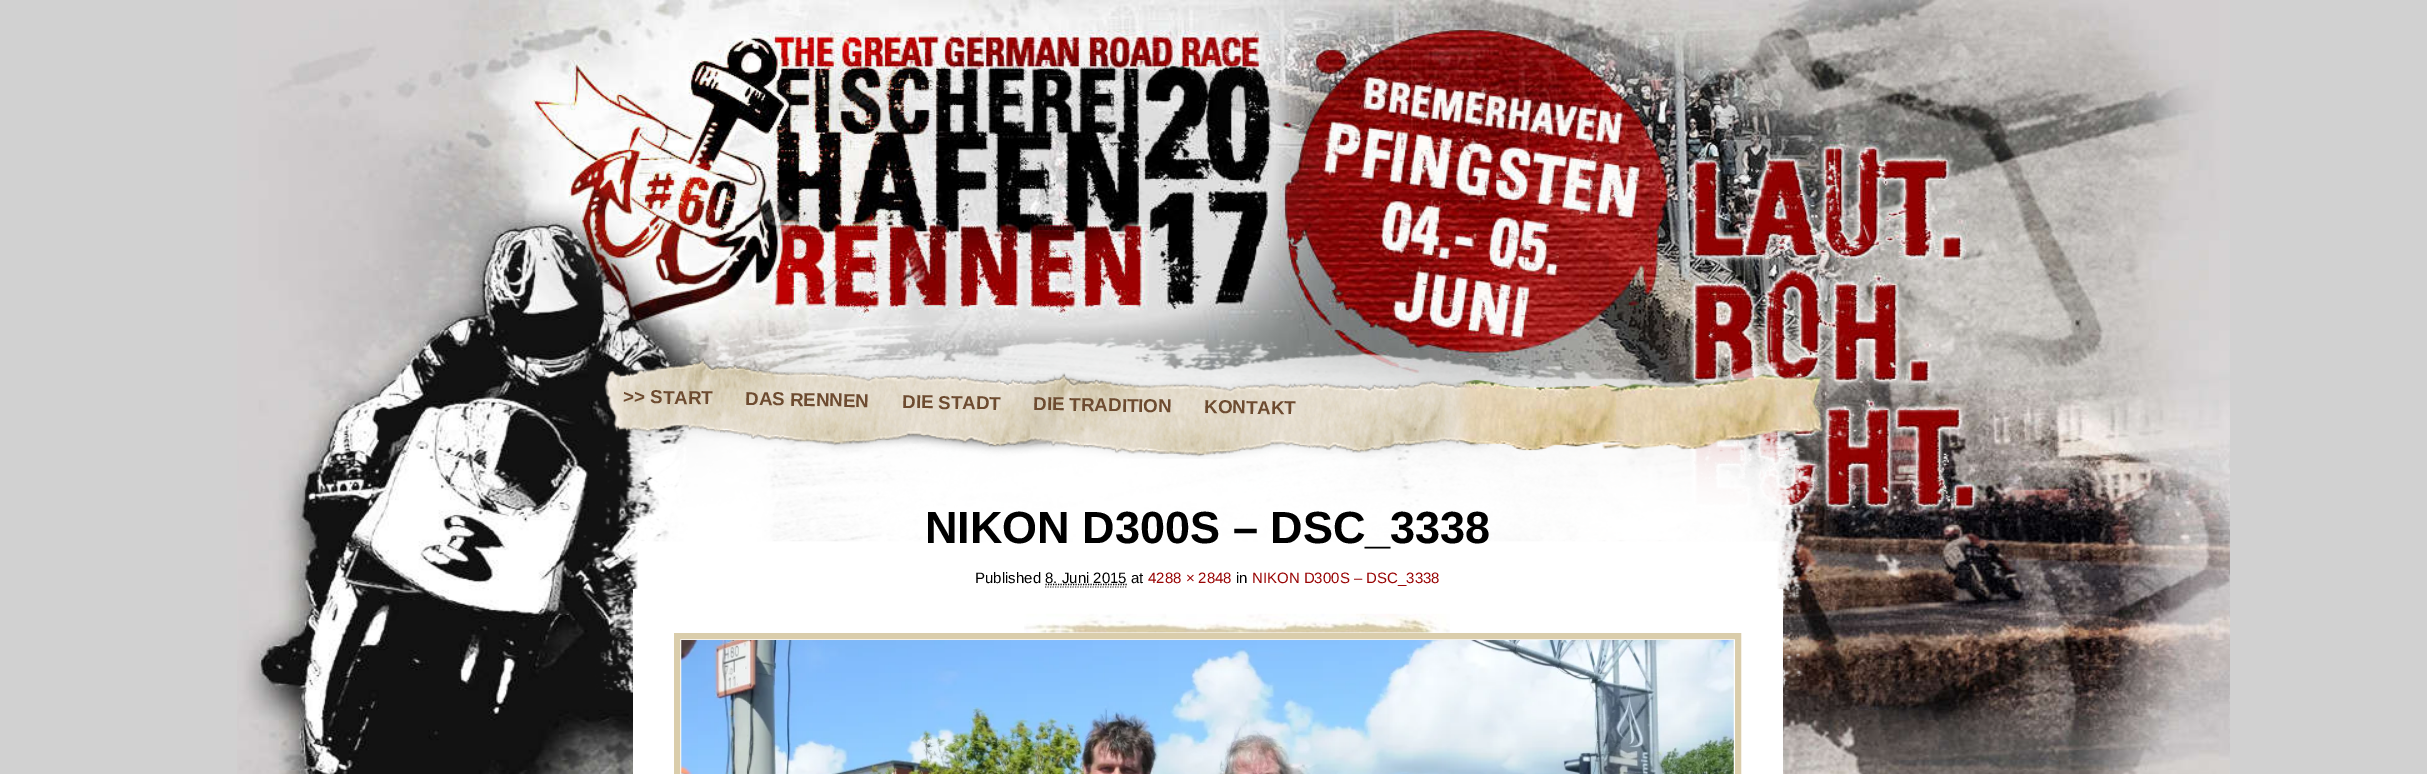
%!PS-Adobe-3.0
%%BoundingBox: 0 0 2427 774
%%LanguageLevel: 3
%%Pages: 1
%%EndComments
%%BeginProlog
/setink { 3 { 255 div 3 1 roll } repeat setrgbcolor } def
/usefont { [ exch dup neg 0 0 3 -1 roll 0 0 ] selectfont } def
/drawtext { setink usefont moveto show } def
/fillbox { setink rectfill } def
/drawimage { 5 dict begin { /h /w /y /x /name } { exch def } forall
  gsave x y translate w h scale
  w h 8 [w 0 0 h 0 0] name (r) file false 3 colorimage grestore end } def
%%EndProlog
%%BeginSetup
<< /PageSize [2427 774] >> setpagedevice
%%EndSetup
%%Page: 1 1
0 774 translate 1 -1 scale
4 setmiterlimit
0 0 2427 774 209 209 209 fillbox
(assets/img1.rgb) 237 0 1993 774 drawimage
(assets/img3.rgb) 583 325 1270 373 drawimage
(assets/img2.rgb) 604 357 1219 102 drawimage
/LiberationSans-Bold 18.75 usefont
109 75 48 setink
gsave 623 403 translate 1 rotate 0 0 moveto (>> START) show grestore
gsave 745 405 translate 1 rotate 0 0 moveto (DAS RENNEN) show grestore
gsave 902 408 translate 1 rotate 0 0 moveto (DIE STADT) show grestore
gsave 1033 410 translate 1 rotate 0 0 moveto (DIE TRADITION) show grestore
gsave 1204 413 translate 1 rotate 0 0 moveto (KONTAKT) show grestore
633 589 1150 185 255 255 255 fillbox
(NIKON D300S – DSC_3338) 925 543 /LiberationSans-Bold 45 0 0 0 drawtext
(Published) 975 583 /LiberationSans-Regular 15 0 0 0 drawtext
1.2 setlinewidth
[1.25 1.25] 0 setdash
1045.5 584.5 moveto 1127 584.5 lineto stroke
(8. Juni 2015 at) 1045 583 /LiberationSans-Regular 15 0 0 0 drawtext
102 102 102 setink
1045 587 moveto 1127.5 587 lineto stroke
(4288 × 2848) 1148 583 /LiberationSans-Regular 15 153 4 4 drawtext
(in) 1236 583 /LiberationSans-Regular 15 0 0 0 drawtext
(NIKON D300S – DSC_3338) 1252 583 /LiberationSans-Regular 15 153 4 4 drawtext
(assets/img4.rgb) 1024 613 426 20 drawimage
218 205 171 setink
6 setlinewidth
[] 0 setdash
677 636 1061 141 rectstroke
(assets/img5.rgb) 681 640 1053 134 drawimage
showpage
%%EOF
